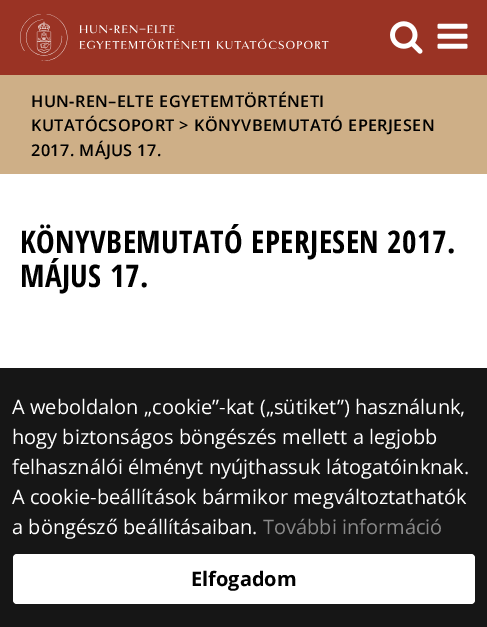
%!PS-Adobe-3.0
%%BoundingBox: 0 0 487 627
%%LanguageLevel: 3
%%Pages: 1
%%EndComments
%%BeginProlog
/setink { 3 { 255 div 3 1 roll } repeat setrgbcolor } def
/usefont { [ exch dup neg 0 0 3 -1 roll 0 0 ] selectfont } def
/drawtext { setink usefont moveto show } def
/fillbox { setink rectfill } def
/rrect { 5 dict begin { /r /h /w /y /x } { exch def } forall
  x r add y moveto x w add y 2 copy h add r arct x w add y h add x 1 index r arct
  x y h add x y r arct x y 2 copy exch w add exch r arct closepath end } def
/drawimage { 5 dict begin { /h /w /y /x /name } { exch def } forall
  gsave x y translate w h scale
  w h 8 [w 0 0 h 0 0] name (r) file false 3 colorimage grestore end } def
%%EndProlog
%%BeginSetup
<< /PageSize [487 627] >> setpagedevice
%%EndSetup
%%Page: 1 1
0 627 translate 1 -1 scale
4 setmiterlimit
0 0 487 627 255 255 255 fillbox
0 0 487 75 154 51 36 fillbox
(assets/img1.rgb) 20 14 309 47 drawimage
(assets/img2.rgb) 390 21 33 33 drawimage
(assets/img3.rgb) 437 23 31 26 drawimage
0 75 487 99 206 175 135 fillbox
/OpenSans-SemiBold 16.25 usefont
0 0 0 setink
31 107 moveto 0.4 0 (HUN-REN–ELTE EGYETEMTÖRTÉNETI) ashow
31 131 moveto 0.4 0 (KUTATÓCSOPORT >) ashow
194 131 moveto 0.4 0 (KÖNYVBEMUTATÓ EPERJESEN) ashow
31 156 moveto 0.4 0 (2017. MÁJUS 17.) ashow
/OpenSansCondensed-Bold 31.25 usefont
20 253 moveto 0.4 0 (KÖNYVBEMUTATÓ EPERJESEN 2017.) ashow
20 287 moveto 0.4 0 (MÁJUS 17.) ashow
0 368 487 259 22 22 22 fillbox
(A weboldalon „cookie”-kat \(„sütiket”\) használunk,) 12 414 /OpenSans-Regular 20 255 255 255 drawtext
(hogy biztonságos böngészés mellett a legjobb) 12 444 /OpenSans-Regular 20 255 255 255 drawtext
(felhasználói élményt nyújthassuk látogatóinknak.) 12 474 /OpenSans-Regular 20 255 255 255 drawtext
(A cookie-beállítások bármikor megváltoztathatók) 12 504 /OpenSans-Regular 20 255 255 255 drawtext
(a böngésző beállításaiban.) 12 534 /OpenSans-Regular 20 255 255 255 drawtext
(További információ) 263 534 /OpenSans-Regular 20 138 138 138 drawtext
255 255 255 setink
13 554 462 50 4 rrect fill
(Elfogadom) 191 586 /OpenSans-Bold 20 0 0 0 drawtext
showpage
%%EOF
